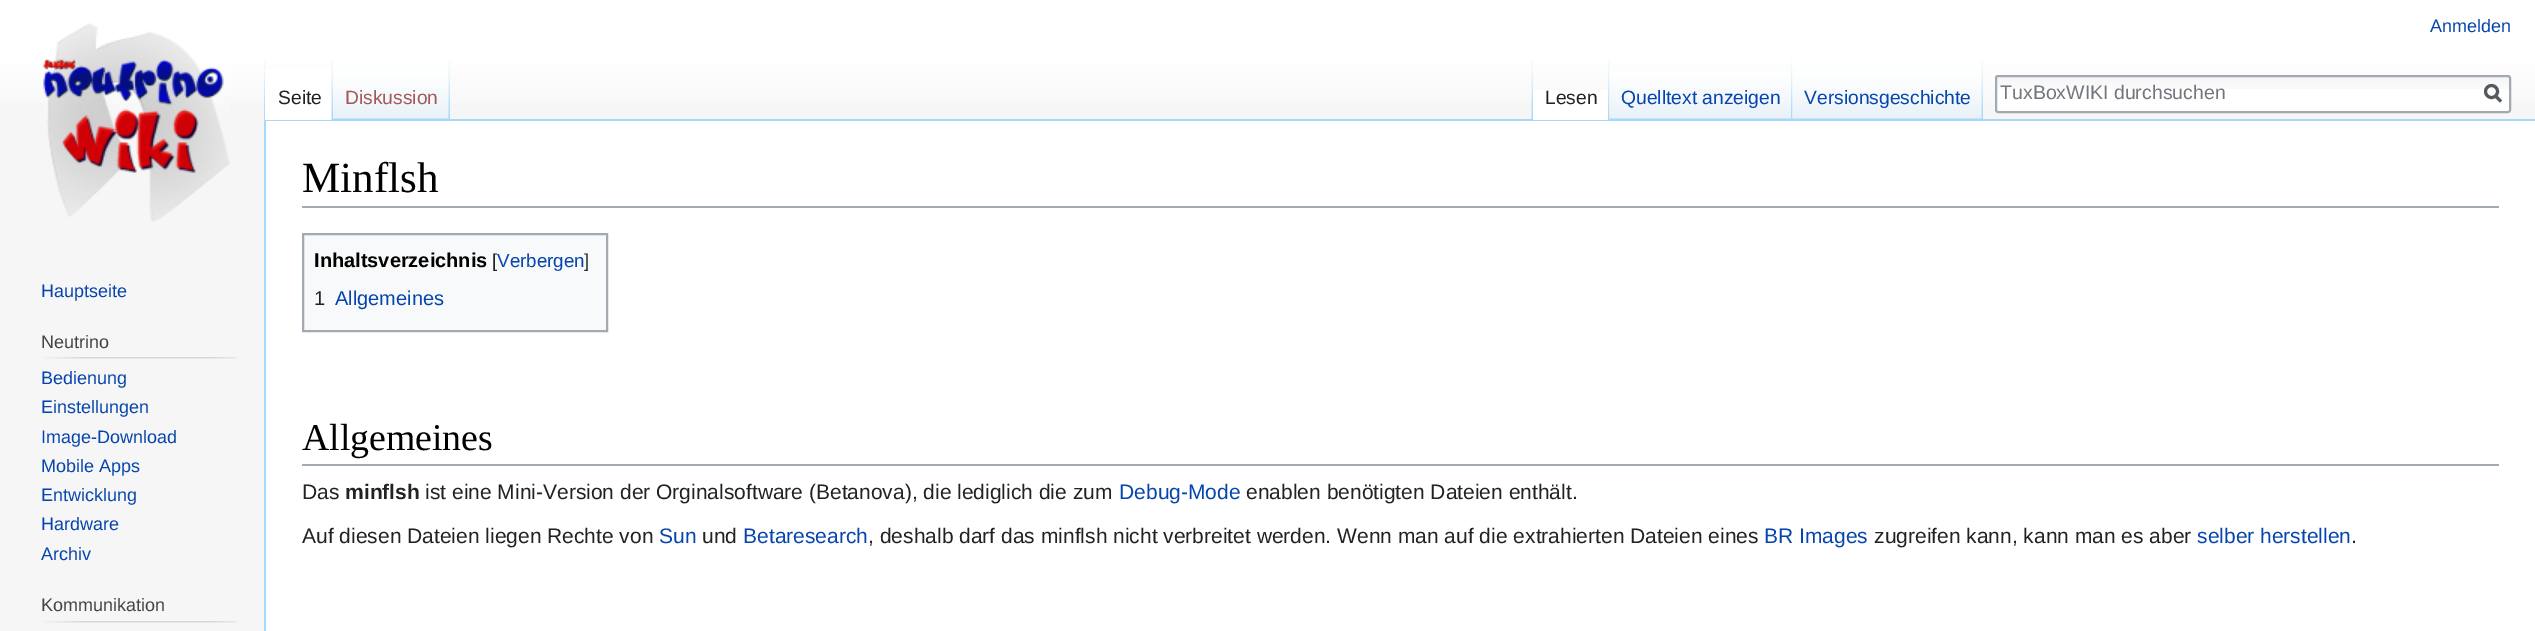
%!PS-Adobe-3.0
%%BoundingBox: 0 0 2535 631
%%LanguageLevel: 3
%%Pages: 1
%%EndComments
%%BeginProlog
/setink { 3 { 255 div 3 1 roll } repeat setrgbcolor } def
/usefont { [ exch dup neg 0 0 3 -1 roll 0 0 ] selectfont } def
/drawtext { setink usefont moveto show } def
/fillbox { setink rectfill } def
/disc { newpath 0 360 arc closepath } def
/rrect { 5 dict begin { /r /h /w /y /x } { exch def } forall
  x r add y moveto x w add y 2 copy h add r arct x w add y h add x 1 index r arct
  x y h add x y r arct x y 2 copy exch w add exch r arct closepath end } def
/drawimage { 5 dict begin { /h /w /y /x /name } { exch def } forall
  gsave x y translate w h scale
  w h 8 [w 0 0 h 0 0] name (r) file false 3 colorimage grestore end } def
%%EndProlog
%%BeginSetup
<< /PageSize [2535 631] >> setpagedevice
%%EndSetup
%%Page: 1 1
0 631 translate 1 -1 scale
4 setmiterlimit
0 0 2535 631 246 246 246 fillbox
gsave 0 0 moveto 2535 0 lineto 2535 103 lineto 0 103 lineto closepath clip newpath
<< /ShadingType 2 /ColorSpace /DeviceRGB /Coords [1268 0 1268 120] /Extend [true true] /Function << /FunctionType 3 /Domain [0 1] /Functions [<< /FunctionType 2 /Domain [0 1] /C0 [1 1 1] /C1 [1 1 1] /N 1 >> << /FunctionType 2 /Domain [0 1] /C0 [1 1 1] /C1 [0.965 0.965 0.965] /N 1 >>] /Bounds [0.5] /Encode [0 1 0 1] >> >> shfill grestore
(Anmelden) 2430 32 /LiberationSans-Regular 18 6 69 173 drawtext
(assets/img1.rgb) 264 60 2 59 drawimage
264 119 2271 2 167 215 249 fillbox
264 119 2 512 167 215 249 fillbox
265 70 67 50 255 255 255 fillbox
(assets/img2.rgb) 331 60 2 60 drawimage
(Seite) 278 104 /LiberationSans-Regular 19.25 34 34 34 drawtext
(assets/img3.rgb) 333 60 116 59 drawimage
(assets/img4.rgb) 448 60 2 59 drawimage
(Diskussion) 345 104 /LiberationSans-Regular 19.25 165 88 88 drawtext
(assets/img5.rgb) 1531 60 2 59 drawimage
1533 90 77 30 255 255 255 fillbox
(assets/img6.rgb) 1608 60 2 60 drawimage
(Lesen) 1545 104 /LiberationSans-Regular 19.25 34 34 34 drawtext
(assets/img7.rgb) 1609 71 184 49 drawimage
(assets/img8.rgb) 1791 60 2 59 drawimage
(Quelltext anzeigen) 1621 104 /LiberationSans-Regular 19.25 6 69 173 drawtext
(assets/img9.rgb) 1792 60 190 59 drawimage
(assets/img4.rgb) 1981 60 2 59 drawimage
(Versionsgeschichte) 1804 104 /LiberationSans-Regular 19.25 6 69 173 drawtext
255 255 255 setink
1995 75 516 38 3 rrect fill
(assets/img10.rgb) 1995 76 516 13 drawimage
162 169 177 setink
2 setlinewidth
1996 76 514 36 2 rrect stroke
(TuxBoxWIKI durchsuchen) 2000 99 /LiberationSans-Regular 19.5 114 119 125 drawtext
84 89 93 setink
3 setlinewidth
2501 101.5 moveto 2495 95.5 lineto stroke
2491.5 91.5 6 disc stroke
(assets/img11.rgb) 43 23 187 199 drawimage
(Hauptseite) 41 297 /LiberationSans-Regular 18 6 69 173 drawtext
(Neutrino) 41 348 /LiberationSans-Regular 18 68 68 68 drawtext
(assets/img12.rgb) 44 357 193 2 drawimage
(Bedienung) 41 384 /LiberationSans-Regular 18 6 69 173 drawtext
(Einstellungen) 41 413 /LiberationSans-Regular 18 6 69 173 drawtext
(Image-Download) 41 443 /LiberationSans-Regular 18 6 69 173 drawtext
(Mobile Apps) 41 472 /LiberationSans-Regular 18 6 69 173 drawtext
(Entwicklung) 41 501 /LiberationSans-Regular 18 6 69 173 drawtext
(Hardware) 41 530 /LiberationSans-Regular 18 6 69 173 drawtext
(Archiv) 41 560 /LiberationSans-Regular 18 6 69 173 drawtext
(Kommunikation) 41 611 /LiberationSans-Regular 18 68 68 68 drawtext
(assets/img12.rgb) 44 621 193 2 drawimage
266 121 2269 510 255 255 255 fillbox
302 206 2197 2 162 169 177 fillbox
(Minflsh) 302 192 /LiberationSerif-Regular 43 0 0 0 drawtext
248 249 250 setink
303 234 moveto 607 234 lineto 607 331 lineto 303 331 lineto closepath gsave fill grestore
162 169 177 setink
2 setlinewidth
stroke
(Inhaltsverzeichnis) 314 267 /LiberationSans-Bold 20 0 0 0 drawtext
([) 492 267 /LiberationSans-Regular 18.75 34 34 34 drawtext
(Verbergen) 497 267 /LiberationSans-Regular 18.75 6 69 173 drawtext
(]) 584 267 /LiberationSans-Regular 18.75 34 34 34 drawtext
(1) 314 305 /LiberationSans-Regular 20 34 34 34 drawtext
(Allgemeines) 335 305 /LiberationSans-Regular 20 6 69 173 drawtext
302 464 2197 2 162 169 177 fillbox
(Allgemeines) 302 450 /LiberationSerif-Regular 37.75 0 0 0 drawtext
(Das) 302 499 /LiberationSans-Regular 21 34 34 34 drawtext
(minflsh) 345 499 /LiberationSans-Bold 21 34 34 34 drawtext
(ist eine Mini-Version der Orginalsoftware \(Betanova\), die lediglich die zum) 425 499 /LiberationSans-Regular 21 34 34 34 drawtext
(Debug-Mode) 1119 499 /LiberationSans-Regular 21 6 69 173 drawtext
(enablen benötigten Dateien enthält.) 1246 499 /LiberationSans-Regular 21 34 34 34 drawtext
(Auf diesen Dateien liegen Rechte von) 302 543 /LiberationSans-Regular 21 34 34 34 drawtext
(Sun) 659 543 /LiberationSans-Regular 21 6 69 173 drawtext
(und) 702 543 /LiberationSans-Regular 21 34 34 34 drawtext
(Betaresearch) 743 543 /LiberationSans-Regular 21 6 69 173 drawtext
(, deshalb darf das minflsh nicht verbreitet werden. Wenn man auf die extrahierten Dateien eines) 868 543 /LiberationSans-Regular 21 34 34 34 drawtext
(BR Images) 1764 543 /LiberationSans-Regular 21 6 69 173 drawtext
(zugreifen kann, kann man es aber) 1874 543 /LiberationSans-Regular 21 34 34 34 drawtext
(selber herstellen) 2197 543 /LiberationSans-Regular 21 6 69 173 drawtext
(.) 2351 543 /LiberationSans-Regular 21 34 34 34 drawtext
showpage
%%EOF
